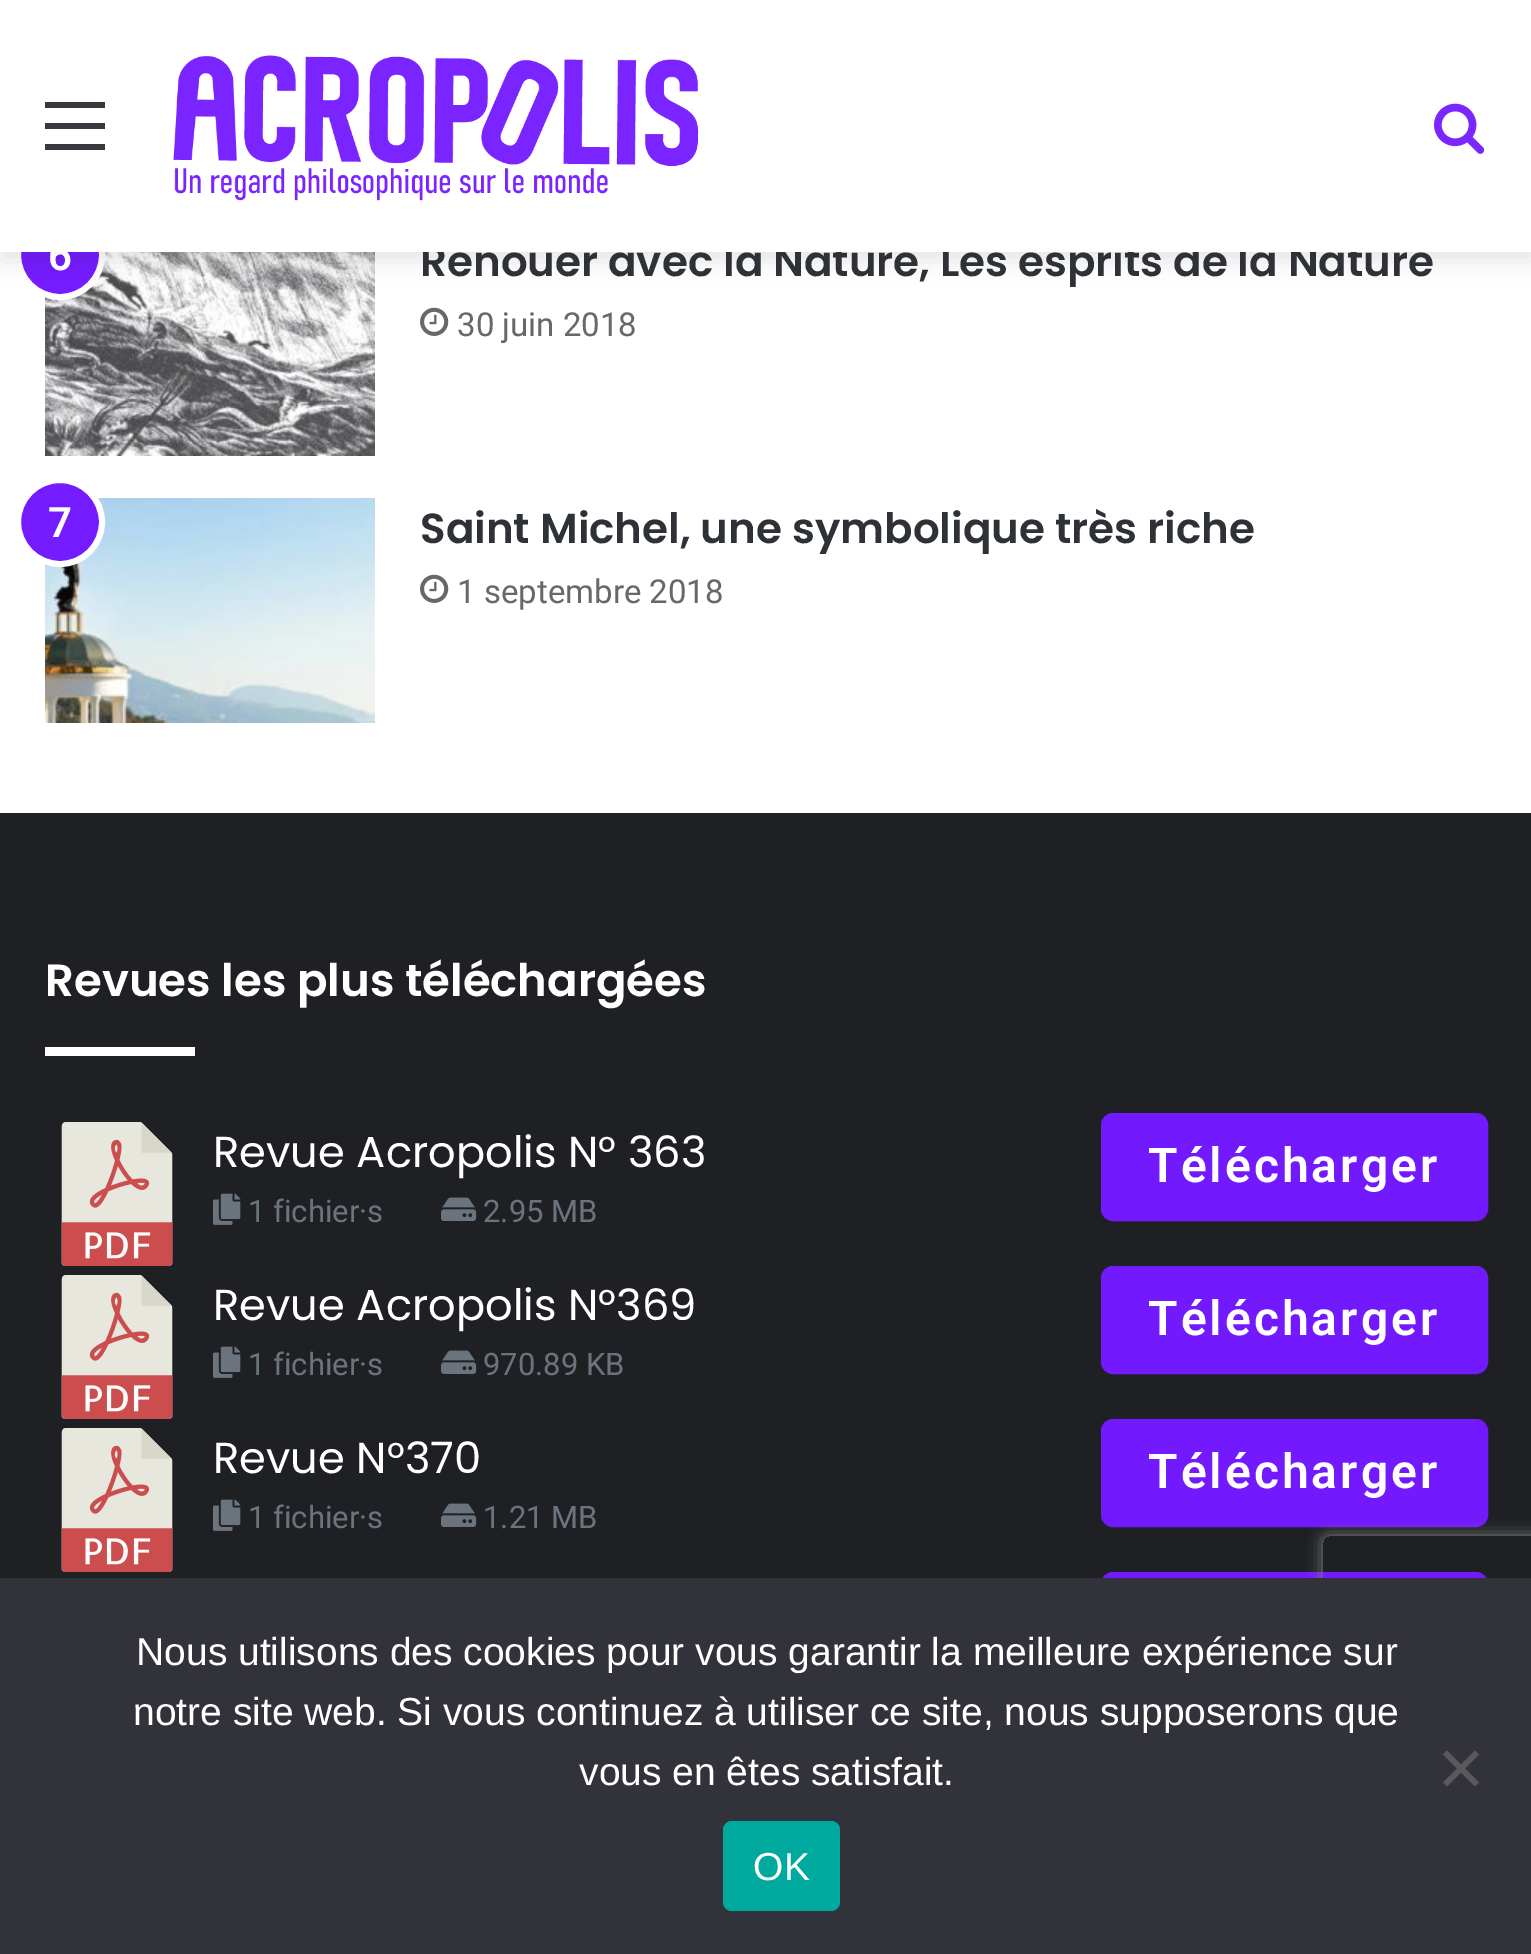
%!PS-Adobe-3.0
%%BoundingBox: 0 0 1531 1954
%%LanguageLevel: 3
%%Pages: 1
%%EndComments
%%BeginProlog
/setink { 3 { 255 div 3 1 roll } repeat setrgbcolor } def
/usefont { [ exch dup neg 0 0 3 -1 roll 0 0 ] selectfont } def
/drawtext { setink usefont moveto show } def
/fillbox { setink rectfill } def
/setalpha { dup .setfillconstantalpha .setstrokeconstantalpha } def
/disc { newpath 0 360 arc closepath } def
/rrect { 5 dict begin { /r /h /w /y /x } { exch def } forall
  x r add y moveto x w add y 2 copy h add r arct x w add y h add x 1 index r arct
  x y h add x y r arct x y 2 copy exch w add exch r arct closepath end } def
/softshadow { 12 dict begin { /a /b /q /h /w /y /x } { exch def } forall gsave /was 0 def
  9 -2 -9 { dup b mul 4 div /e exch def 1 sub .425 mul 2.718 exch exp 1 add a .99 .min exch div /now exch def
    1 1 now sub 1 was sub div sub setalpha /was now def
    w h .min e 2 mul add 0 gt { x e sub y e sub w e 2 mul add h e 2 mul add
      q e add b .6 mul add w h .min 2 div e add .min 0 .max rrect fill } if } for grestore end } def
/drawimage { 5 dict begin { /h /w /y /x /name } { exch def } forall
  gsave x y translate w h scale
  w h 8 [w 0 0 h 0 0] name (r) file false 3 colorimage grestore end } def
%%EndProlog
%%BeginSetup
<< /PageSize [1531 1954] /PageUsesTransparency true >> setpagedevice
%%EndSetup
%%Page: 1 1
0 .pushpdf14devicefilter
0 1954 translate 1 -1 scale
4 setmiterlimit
0 0 1531 1954 255 255 255 fillbox
(assets/img4.rgb) 45 252 330 204 drawimage
116 28 255 setink
60 255 42 disc gsave fill grestore
255 255 255 setink
6 setlinewidth
stroke
0 0 0 setink
0 9 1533 252 0 10.5 0.1 softshadow
(Renouer avec la Nature, Les esprits de la Nature) 420 276 /Poppins-SemiBold 42 46 49 54 drawtext
0 0 1531 252 255 255 255 fillbox
45 123 60 6 55 57 62 fillbox
45 102 60 6 55 57 62 fillbox
45 144 60 6 55 57 62 fillbox
(assets/img1.rgb) 173 55 526 146 drawimage
(assets/img2.rgb) 1434 103 51 51 drawimage
(6) 48 270 /Roboto-SemiBold 42 255 255 255 drawtext
(assets/img3.rgb) 420 307 29 29 drawimage
(30 juin 2018) 457 336 /Roboto-Regular 33 104 104 104 drawtext
(assets/img5.rgb) 45 498 330 225 drawimage
116 28 255 setink
60 522 42 disc gsave fill grestore
255 255 255 setink
stroke
(7) 48 537 /Roboto-SemiBold 42 255 255 255 drawtext
(Saint Michel, une symbolique très riche) 420 543 /Poppins-SemiBold 42 46 49 54 drawtext
(assets/img3.rgb) 420 574 29 29 drawimage
(1 septembre 2018) 457 603 /Roboto-Regular 33 104 104 104 drawtext
0 813 1531 765 31 32 36 fillbox
(Revues les plus téléchargées) 45 996 /Poppins-SemiBold 45 255 255 255 drawtext
45 1047 150 9 253 253 253 fillbox
(assets/img6.rgb) 61 1122 112 144 drawimage
(Revue Acropolis N° 363) 213 1167 /Poppins-Regular 43.25 255 255 255 drawtext
(assets/img7.rgb) 213 1193 28 32 drawimage
(1 fichier·s) 248 1222 /Roboto-Regular 31 107 116 124 drawtext
(assets/img8.rgb) 441 1197 36 24 drawimage
(2.95 MB) 483 1222 /Roboto-Regular 31 107 116 124 drawtext
114 26 253 setink
1102.5 1114.5 384 105 10.5 rrect gsave fill grestore
3 setlinewidth
stroke
/Roboto-SemiBold 48 usefont
255 255 255 setink
1148 1182 moveto 3 0 (Télécharger) ashow
(assets/img6.rgb) 61 1275 112 144 drawimage
(Revue Acropolis N°369) 213 1320 /Poppins-Regular 43.25 255 255 255 drawtext
(assets/img7.rgb) 213 1346 28 32 drawimage
(1 fichier·s) 248 1375 /Roboto-Regular 31 107 116 124 drawtext
(assets/img8.rgb) 441 1350 36 24 drawimage
(970.89 KB) 483 1375 /Roboto-Regular 31 107 116 124 drawtext
114 26 253 setink
1102.5 1267.5 384 105 10.5 rrect gsave fill grestore
stroke
/Roboto-SemiBold 48 usefont
255 255 255 setink
1148 1335 moveto 3 0 (Télécharger) ashow
(assets/img6.rgb) 61 1428 112 144 drawimage
(Revue N°370) 213 1473 /Poppins-Regular 43.25 255 255 255 drawtext
(assets/img7.rgb) 213 1499 28 32 drawimage
(1 fichier·s) 248 1528 /Roboto-Regular 31 107 116 124 drawtext
(assets/img8.rgb) 441 1503 36 24 drawimage
(1.21 MB) 483 1528 /Roboto-Regular 31 107 116 124 drawtext
114 26 253 setink
1102.5 1420.5 384 105 10.5 rrect gsave fill grestore
stroke
/Roboto-SemiBold 48 usefont
255 255 255 setink
1148 1488 moveto 3 0 (Télécharger) ashow
114 26 253 setink
1102.5 1573.5 384 105 10.5 rrect gsave fill grestore
stroke
gsave
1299 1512 moveto 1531 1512 lineto 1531 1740 lineto 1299 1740 lineto closepath 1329 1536 moveto 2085 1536 lineto 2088.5 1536 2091 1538.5 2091 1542 curveto 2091 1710 lineto 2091 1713.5 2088.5 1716 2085 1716 curveto 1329 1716 lineto 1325.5 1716 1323 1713.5 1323 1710 curveto 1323 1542 lineto 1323 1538.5 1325.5 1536 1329 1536 curveto closepath eoclip newpath
128 128 128 setink
1323 1536 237 180 6 7.5 1 softshadow
grestore
0 1578 1531 376 50 50 58 fillbox
(Nous utilisons des cookies pour vous garantir la meilleure expérience sur) 136 1665 /LiberationSans-Regular 39 255 255 255 drawtext
(notre site web. Si vous continuez à utiliser ce site, nous supposerons que) 133 1725 /LiberationSans-Regular 39 255 255 255 drawtext
(vous en êtes satisfait.) 579 1785 /LiberationSans-Regular 39 255 255 255 drawtext
89 89 93 setink
1475 1750.5 moveto 1479 1754.5 lineto 1447 1786.5 lineto 1443 1782.5 lineto closepath fill
1443 1754.5 moveto 1447 1750.5 lineto 1479 1782.5 lineto 1475 1786.5 lineto closepath fill
0 169 157 setink
723 1821 117 90 9 rrect fill
255 255 255 setink
753 1880 moveto 1 0 (OK) ashow
.poppdf14devicefilter showpage
%%EOF
